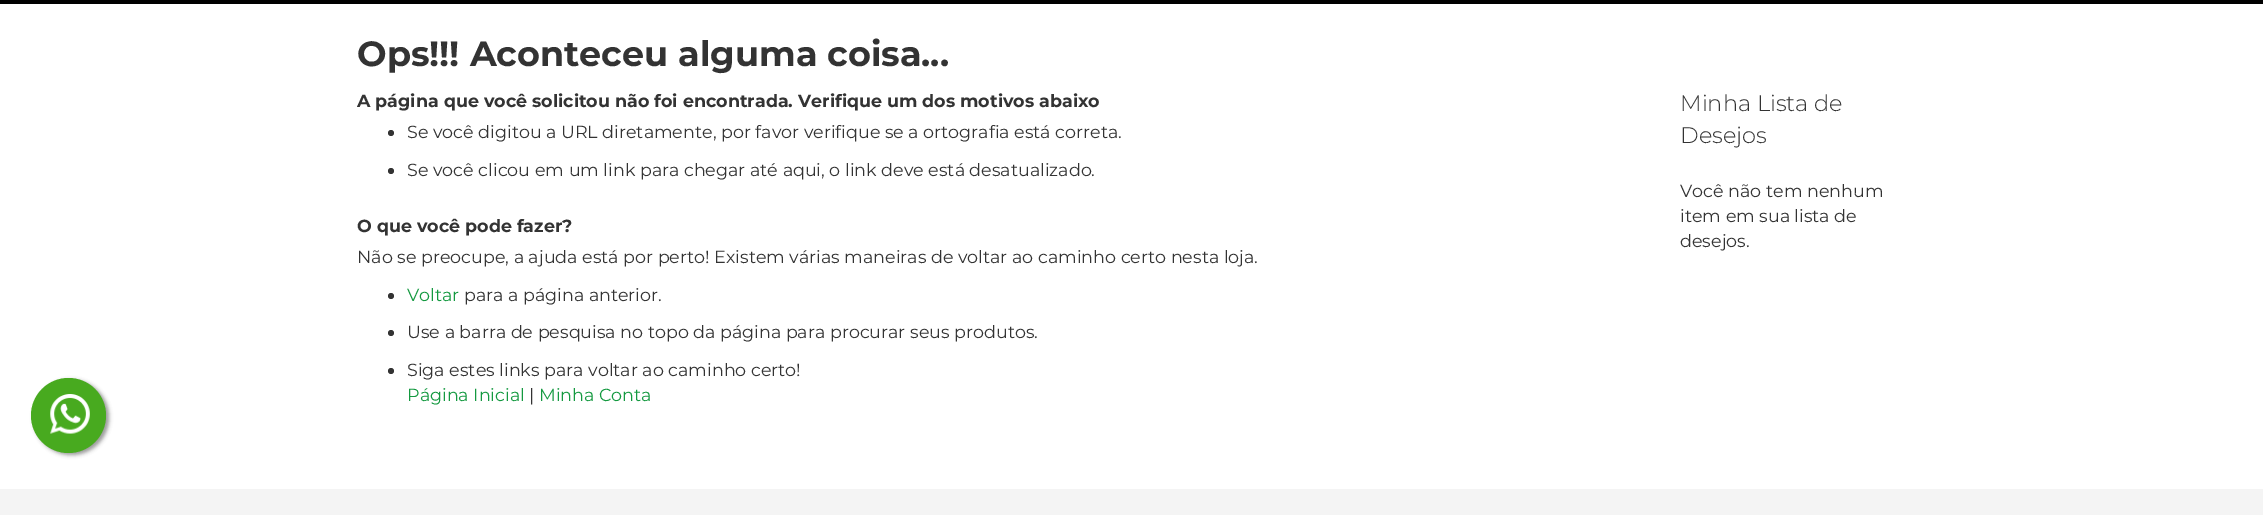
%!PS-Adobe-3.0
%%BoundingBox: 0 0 2263 515
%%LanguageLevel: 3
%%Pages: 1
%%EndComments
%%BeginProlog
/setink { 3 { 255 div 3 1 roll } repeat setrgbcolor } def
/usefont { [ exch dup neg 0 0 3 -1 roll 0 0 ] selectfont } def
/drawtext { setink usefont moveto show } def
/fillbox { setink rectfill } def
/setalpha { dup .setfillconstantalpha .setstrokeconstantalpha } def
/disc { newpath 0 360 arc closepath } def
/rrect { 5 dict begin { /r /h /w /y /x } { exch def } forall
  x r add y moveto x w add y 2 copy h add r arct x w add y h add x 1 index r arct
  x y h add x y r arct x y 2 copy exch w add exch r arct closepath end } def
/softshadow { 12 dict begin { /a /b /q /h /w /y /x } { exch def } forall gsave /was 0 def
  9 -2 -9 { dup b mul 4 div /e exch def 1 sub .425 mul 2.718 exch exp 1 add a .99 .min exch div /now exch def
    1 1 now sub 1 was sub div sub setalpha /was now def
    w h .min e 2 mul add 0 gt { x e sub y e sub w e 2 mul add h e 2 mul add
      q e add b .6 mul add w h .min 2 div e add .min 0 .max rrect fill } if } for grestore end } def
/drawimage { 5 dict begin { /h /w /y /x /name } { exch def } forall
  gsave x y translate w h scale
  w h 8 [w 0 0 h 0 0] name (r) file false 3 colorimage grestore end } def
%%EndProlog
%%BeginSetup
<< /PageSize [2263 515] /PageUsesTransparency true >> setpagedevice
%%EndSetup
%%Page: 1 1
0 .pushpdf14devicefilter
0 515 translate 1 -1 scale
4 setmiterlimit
0 0 2263 515 255 255 255 fillbox
0 0 2263 4 0 0 0 fillbox
(Ops!!! Aconteceu alguma coisa...) 357 66 /Montserrat-Bold 35 51 51 51 drawtext
(A página que você solicitou não foi encontrada. Verifique um dos motivos abaixo) 357 107 /Montserrat-Bold 17.5 51 51 51 drawtext
391 133 3 disc fill
(Se você digitou a URL diretamente, por favor verifique se a ortografia está correta.) 407 138 /Montserrat-Regular 17.5 51 51 51 drawtext
391 171 3 disc fill
(Se você clicou em um link para chegar até aqui, o link deve está desatualizado.) 407 176 /Montserrat-Regular 17.5 51 51 51 drawtext
(O que você pode fazer?) 357 232 /Montserrat-Bold 17.5 51 51 51 drawtext
(Não se preocupe, a ajuda está por perto! Existem várias maneiras de voltar ao caminho certo nesta loja.) 357 263 /Montserrat-Regular 17.5 51 51 51 drawtext
391 296 3 disc fill
(Voltar) 407 301 /Montserrat-Regular 17.5 20 153 64 drawtext
(para a página anterior.) 464 301 /Montserrat-Regular 17.5 51 51 51 drawtext
391 333 3 disc fill
(Use a barra de pesquisa no topo da página para procurar seus produtos.) 407 338 /Montserrat-Regular 17.5 51 51 51 drawtext
391 371 3 disc fill
(Siga estes links para voltar ao caminho certo!) 407 376 /Montserrat-Regular 17.5 51 51 51 drawtext
(Página Inicial) 407 401 /Montserrat-Regular 17.5 20 153 64 drawtext
(|) 529 401 /Montserrat-Regular 17.5 51 51 51 drawtext
(Minha Conta) 539 401 /Montserrat-Regular 17.5 20 153 64 drawtext
(Minha Lista de) 1680 111 /Montserrat-Light 22.5 51 51 51 drawtext
(Desejos) 1680 143 /Montserrat-Light 22.5 51 51 51 drawtext
(Você não tem nenhum) 1680 197 /Montserrat-Regular 17.5 51 51 51 drawtext
(item em sua lista de) 1680 222 /Montserrat-Regular 17.5 51 51 51 drawtext
(desejos.) 1680 247 /Montserrat-Regular 17.5 51 51 51 drawtext
0 489 2263 26 244 244 244 fillbox
153 153 153 setink
34 380 75 75 37.5 2 1 softshadow
72 170 31 setink
68.5 415.5 37.5 disc fill
(assets/img1.rgb) 50 394 40 40 drawimage
.poppdf14devicefilter showpage
%%EOF
